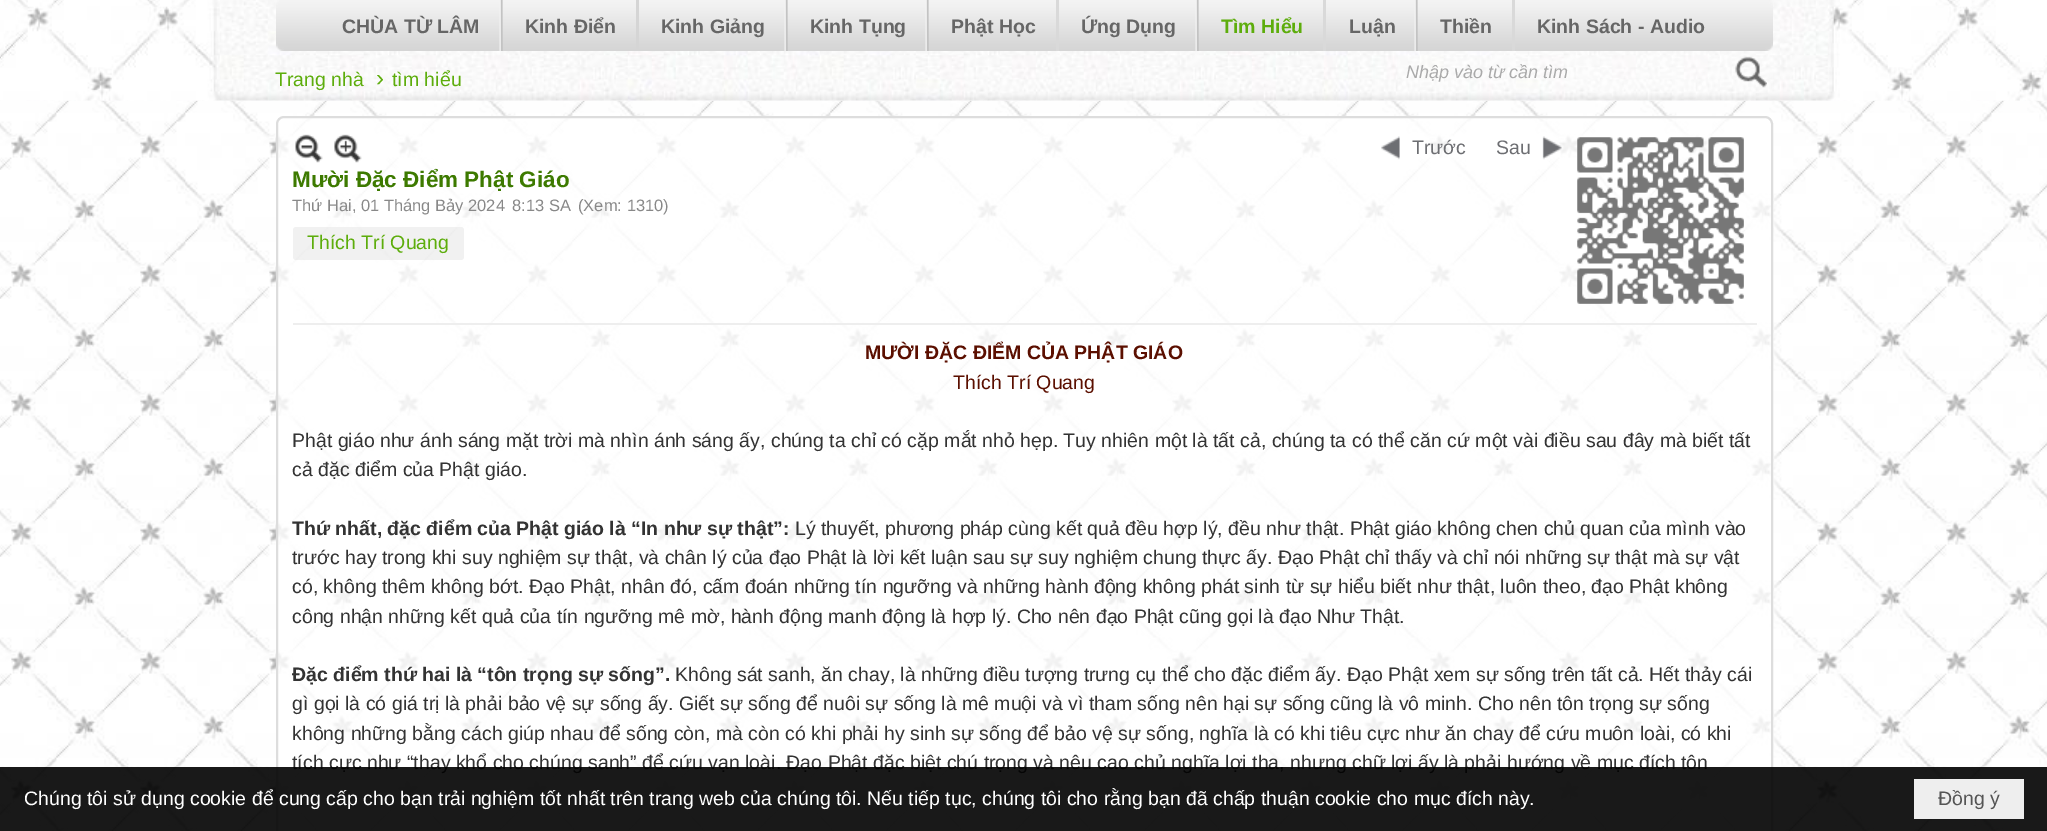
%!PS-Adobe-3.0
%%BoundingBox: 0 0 2047 831
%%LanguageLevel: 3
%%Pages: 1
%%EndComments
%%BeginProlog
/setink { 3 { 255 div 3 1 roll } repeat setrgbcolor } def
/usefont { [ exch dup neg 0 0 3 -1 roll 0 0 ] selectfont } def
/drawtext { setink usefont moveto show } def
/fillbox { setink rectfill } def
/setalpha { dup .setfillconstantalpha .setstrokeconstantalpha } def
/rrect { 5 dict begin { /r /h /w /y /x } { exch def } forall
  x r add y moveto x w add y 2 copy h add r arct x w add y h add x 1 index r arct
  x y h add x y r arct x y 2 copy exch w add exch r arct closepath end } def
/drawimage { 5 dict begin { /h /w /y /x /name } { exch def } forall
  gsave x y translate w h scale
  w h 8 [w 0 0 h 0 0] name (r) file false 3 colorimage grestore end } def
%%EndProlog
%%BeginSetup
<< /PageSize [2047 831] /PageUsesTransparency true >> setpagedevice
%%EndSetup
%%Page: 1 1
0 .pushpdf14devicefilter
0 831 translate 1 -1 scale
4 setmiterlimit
0 0 2047 831 255 255 255 fillbox
(assets/img1.rgb) 0 100 2047 731 drawimage
(assets/img2.rgb) 0 0 2047 101 drawimage
(assets/img3.rgb) 276 0 1497 51 drawimage
(assets/img4.rgb) 499 0 4 51 drawimage
(CHÙA TỪ LÂM) 342 33 /LiberationSans-Bold 19.5 102 102 102 drawtext
636 0 3 51 213 213 213 fillbox
(Kinh Điển) 525 33 /LiberationSans-Bold 19.5 102 102 102 drawtext
(assets/img4.rgb) 784 0 4 51 drawimage
(Kinh Giảng) 661 33 /LiberationSans-Bold 19.5 102 102 102 drawtext
(assets/img4.rgb) 925 0 4 51 drawimage
(Kinh Tụng) 810 33 /LiberationSans-Bold 19.5 102 102 102 drawtext
1056 0 3 51 217 217 217 fillbox
(Phật Học) 951 33 /LiberationSans-Bold 19.5 102 102 102 drawtext
(assets/img4.rgb) 1195 0 4 51 drawimage
(Ứng Dụng) 1081 33 /LiberationSans-Bold 19.5 102 102 102 drawtext
1323 0 3 51 217 217 217 fillbox
(Tìm Hiểu) 1221 33 /LiberationSans-Bold 19.5 93 173 12 drawtext
(assets/img4.rgb) 1414 0 4 51 drawimage
(Luận) 1349 33 /LiberationSans-Bold 19.5 102 102 102 drawtext
1512 0 3 51 217 217 217 fillbox
(Thiền) 1440 33 /LiberationSans-Bold 19.5 102 102 102 drawtext
(Kinh Sách - Audio) 1537 33 /LiberationSans-Bold 19.5 102 102 102 drawtext
(Trang nhà) 275 86 /LiberationSans-Regular 19.5 93 173 12 drawtext
(›) 376 86 /LiberationSans-Regular 24 93 173 12 drawtext
(tìm hiểu) 392 86 /LiberationSans-Regular 19.5 93 173 12 drawtext
0.2 setalpha
255 255 255 setink
1398 51 375 42 5 rrect fill
1 setalpha
(Nhập vào từ cần tìm) 1406 78 /LiberationSans-Italic 18 170 170 170 drawtext
(assets/img5.rgb) 1735 56 32 32 drawimage
0.8 setalpha
255 255 255 setink
277 117 1495 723 7 rrect fill
1 setalpha
221 221 221 setink
2 setlinewidth
277 117 1495 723 7 rrect stroke
293 323 1464 2 238 238 238 fillbox
(assets/img6.rgb) 295 134 28 29 drawimage
(assets/img7.rgb) 334 134 28 29 drawimage
(assets/img8.rgb) 1381 136 19 24 drawimage
(Trước) 1412 154 /LiberationSans-Regular 19.5 109 110 114 drawtext
(assets/img9.rgb) 1542 136 20 24 drawimage
(Sau) 1496 154 /LiberationSans-Regular 19.5 109 110 114 drawtext
(assets/img10.rgb) 1577 137 167 167 drawimage
(Mười Đặc Điểm Phật Giáo) 292 187 /LiberationSans-Bold 22.5 61 122 0 drawtext
(Thứ Hai, 01 Tháng Bảy 2024) 292 211 /LiberationSans-Regular 16.5 136 136 136 drawtext
(8:13 SA) 512 211 /LiberationSans-Regular 16.5 136 136 136 drawtext
(\(Xem: 1310\)) 578 211 /LiberationSans-Regular 16.5 136 136 136 drawtext
0.4 setalpha
221 221 221 setink
293 227 171 33 3 rrect fill
1 setalpha
(Thích Trí Quang) 307 249 /LiberationSans-Regular 19.5 93 173 12 drawtext
(MƯỜI ĐẶC ĐIỂM CỦA PHẬT GIÁO) 865 359 /LiberationSans-Bold 19.5 91 15 0 drawtext
(Thích Trí Quang) 953 389 /LiberationSans-Regular 19.5 91 15 0 drawtext
(Phật giáo như ánh sáng mặt trời mà nhìn ánh sáng ấy, chúng ta chỉ có cặp mắt nhỏ hẹp. Tuy nhiên một là tất cả, chúng ta có thể căn cứ một vài điều sau đây mà biết tất) 292 447 /LiberationSans-Regular 19.5 51 51 51 drawtext
(cả đặc điểm của Phật giáo.) 292 476 /LiberationSans-Regular 19.5 51 51 51 drawtext
(Thứ nhất, đặc điểm của Phật giáo là “In như sự thật”:) 292 535 /LiberationSans-Bold 19.5 51 51 51 drawtext
(Lý thuyết, phương pháp cùng kết quả đều hợp lý, đều như thật. Phật giáo không chen chủ quan của mình vào) 795 535 /LiberationSans-Regular 19.5 51 51 51 drawtext
(trước hay trong khi suy nghiệm sự thật, và chân lý của đạo Phật là lời kết luận sau sự suy nghiệm chung thực ấy. Đạo Phật chỉ thấy và chỉ nói những sự thật mà sự vật) 292 564 /LiberationSans-Regular 19.5 51 51 51 drawtext
(có, không thêm không bớt. Đạo Phật, nhân đó, cấm đoán những tín ngưỡng và những hành động không phát sinh từ sự hiểu biết như thật, luôn theo, đạo Phật không) 292 593 /LiberationSans-Regular 19.5 51 51 51 drawtext
(công nhận những kết quả của tín ngưỡng mê mờ, hành động manh động là hợp lý. Cho nên đạo Phật cũng gọi là đạo Như Thật.) 292 623 /LiberationSans-Regular 19.5 51 51 51 drawtext
(Đặc điểm thứ hai là “tôn trọng sự sống”.) 292 681 /LiberationSans-Bold 19.5 51 51 51 drawtext
(Không sát sanh, ăn chay, là những điều tượng trưng cụ thể cho đặc điểm ấy. Đạo Phật xem sự sống trên tất cả. Hết thảy cái) 675 681 /LiberationSans-Regular 19.5 51 51 51 drawtext
(gì gọi là có giá trị là phải bảo vệ sự sống ấy. Giết sự sống để nuôi sự sống là mê muội và vì tham sống nên hại sự sống cũng là vô minh. Cho nên tôn trọng sự sống) 292 710 /LiberationSans-Regular 19.5 51 51 51 drawtext
(không những bằng cách giúp nhau để sống còn, mà còn có khi phải hy sinh sự sống để bảo vệ sự sống, nghĩa là có khi tiêu cực như ăn chay để cứu muôn loài, có khi) 292 740 /LiberationSans-Regular 19.5 51 51 51 drawtext
(tích cực như “thay khổ cho chúng sanh” để cứu vạn loài. Đạo Phật đặc biệt chú trọng và nêu cao chủ nghĩa lợi tha, nhưng chữ lợi ấy là phải hướng về mục đích tôn) 292 769 /LiberationSans-Regular 19.5 51 51 51 drawtext
0.9 setalpha
0 767 2047 64 0 0 0 fillbox
1 setalpha
(Chúng tôi sử dụng cookie để cung cấp cho bạn trải nghiệm tốt nhất trên trang web của chúng tôi. Nếu tiếp tục, chúng tôi cho rằng bạn đã chấp thuận cookie cho mục đích này.) 24 805 /LiberationSans-Regular 19.5 255 255 255 drawtext
1914 779 110 40 238 238 238 fillbox
(Đồng ý) 1938 805 /LiberationSans-Regular 19.5 85 85 85 drawtext
.poppdf14devicefilter showpage
%%EOF
